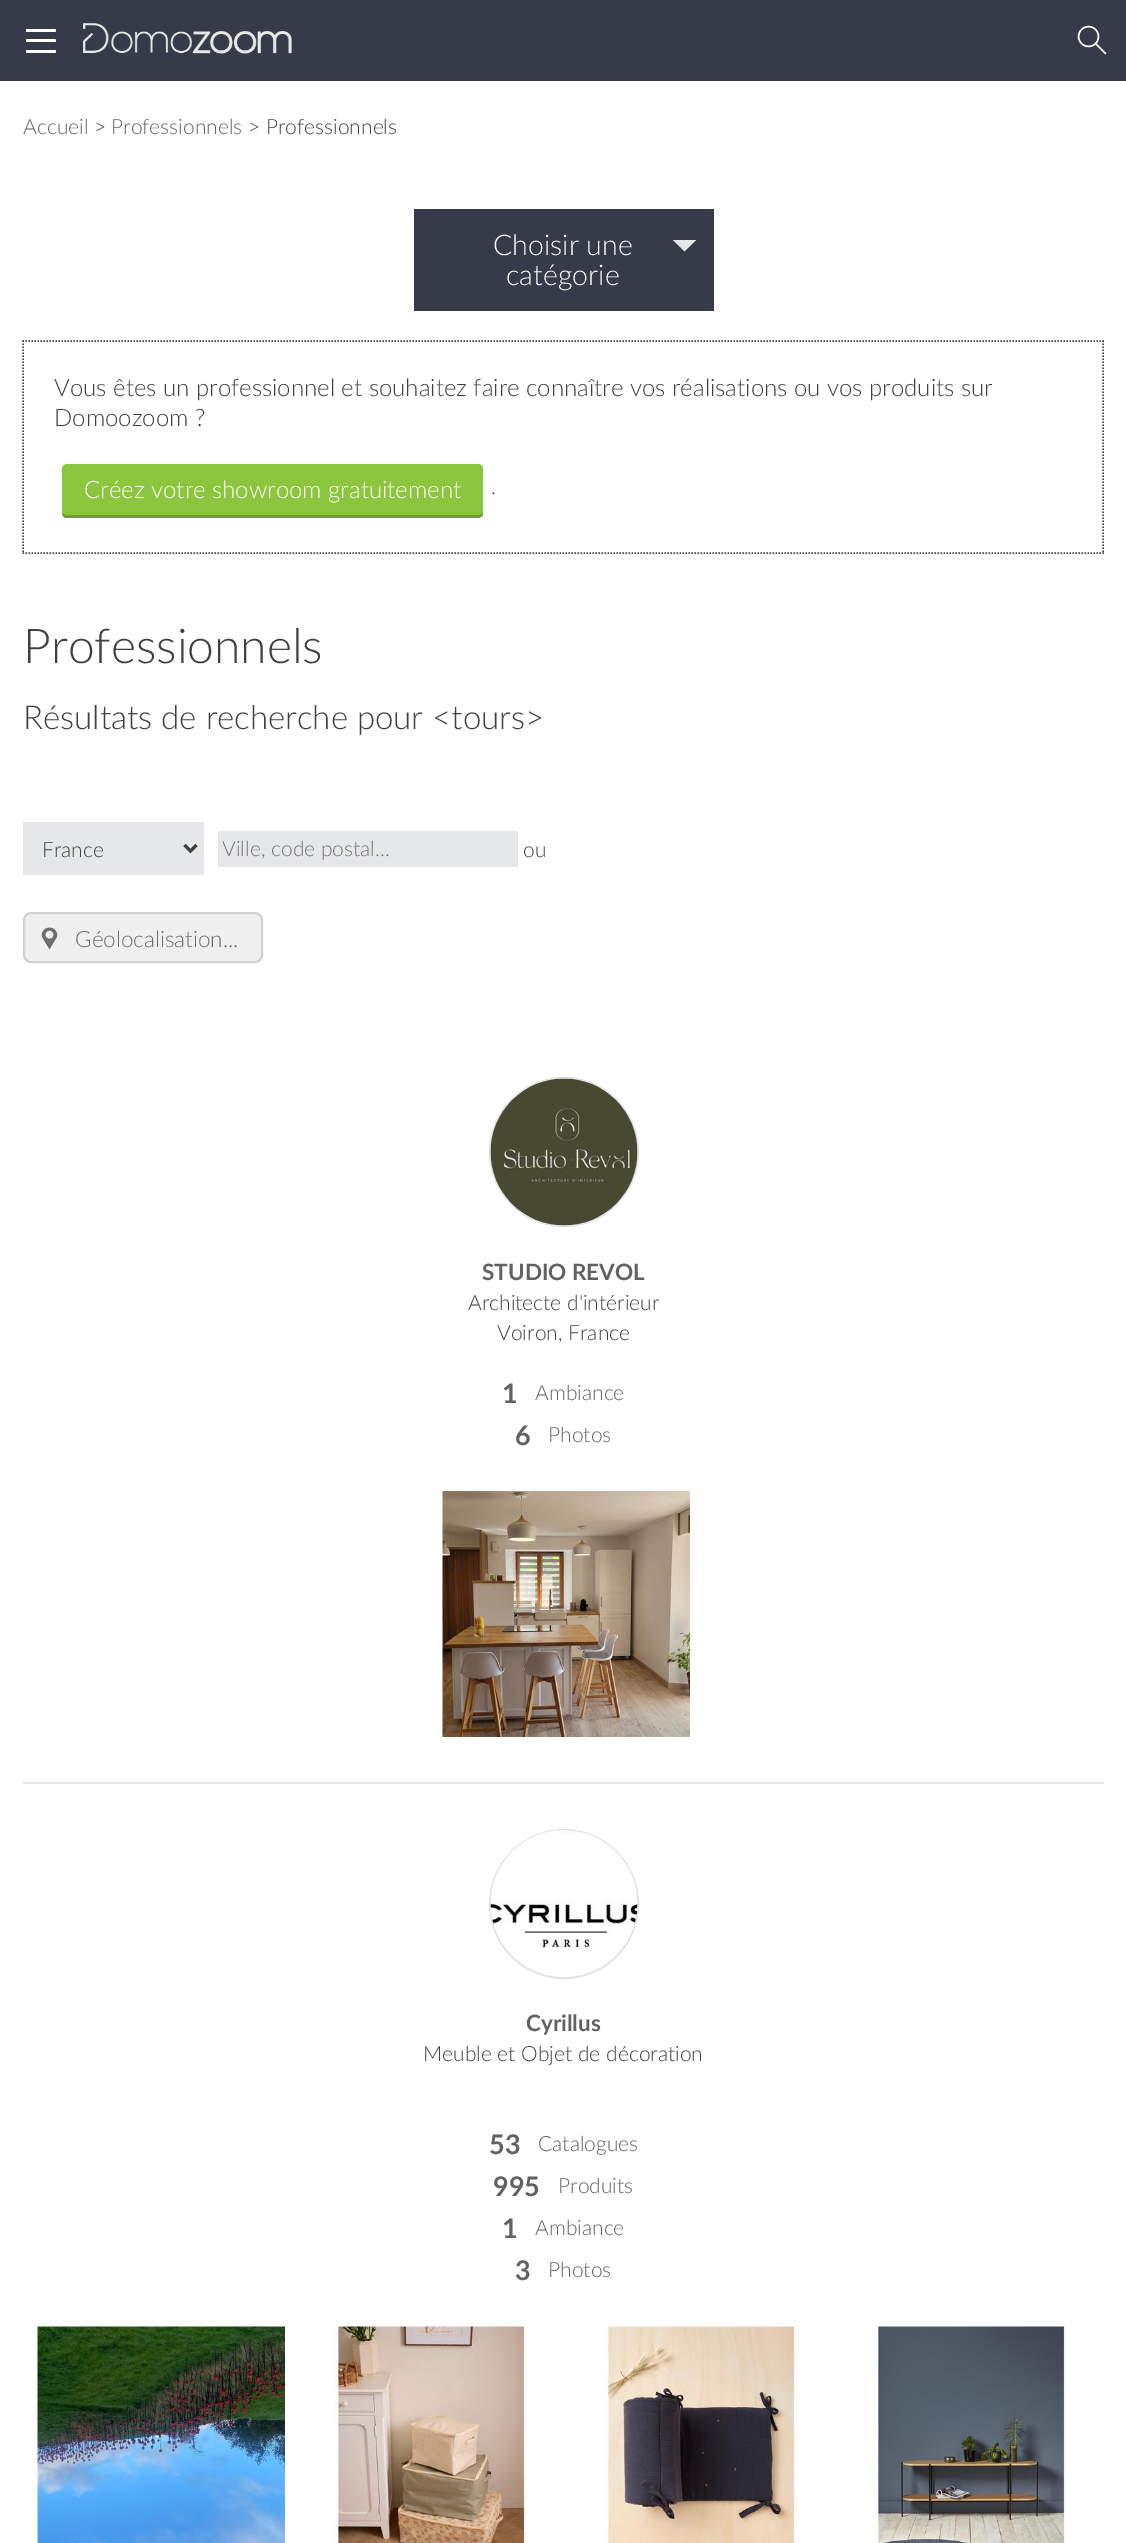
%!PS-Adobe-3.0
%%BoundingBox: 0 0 1126 2543
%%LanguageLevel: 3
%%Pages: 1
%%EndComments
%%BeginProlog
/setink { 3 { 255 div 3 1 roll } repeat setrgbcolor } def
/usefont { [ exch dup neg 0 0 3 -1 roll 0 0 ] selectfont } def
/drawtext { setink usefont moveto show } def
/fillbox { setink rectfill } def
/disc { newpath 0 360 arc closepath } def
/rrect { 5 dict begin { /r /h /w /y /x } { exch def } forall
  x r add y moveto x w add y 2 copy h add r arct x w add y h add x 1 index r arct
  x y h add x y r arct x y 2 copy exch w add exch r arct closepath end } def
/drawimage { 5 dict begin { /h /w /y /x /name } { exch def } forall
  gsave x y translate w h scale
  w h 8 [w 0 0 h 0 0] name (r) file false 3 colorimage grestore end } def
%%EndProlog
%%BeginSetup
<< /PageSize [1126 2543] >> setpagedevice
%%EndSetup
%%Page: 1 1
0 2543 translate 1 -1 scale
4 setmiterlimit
0 0 1126 2543 255 255 255 fillbox
0 0 1126 81 55 59 73 fillbox
255 255 255 setink
26 29 30 3 1.5 rrect fill
26 39 30 3 1.5 rrect fill
26 50 30 3 1.5 rrect fill
(assets/img1.rgb) 83 23 209 31 drawimage
(assets/img2.rgb) 1077 25 30 30 drawimage
(Accueil) 23 134 /Lato-Light 21 98 98 98 drawtext
(>) 94 134 /Lato-Light 21 64 64 65 drawtext
(Professionnels) 111 134 /Lato-Light 21 98 98 98 drawtext
(> Professionnels) 248 134 /Lato-Light 21 64 64 65 drawtext
414 209 300 102 55 59 73 fillbox
(Choisir une) 493 255 /Lato-Light 28.5 255 255 255 drawtext
(assets/img3.rgb) 672 240 25 12 drawimage
(catégorie) 506 285 /Lato-Light 28.5 255 255 255 drawtext
64 64 65 setink
1.5 setlinewidth
[1.5 1.5] 0 setdash
22.5 341 moveto 1104 341 lineto stroke
1103 340.5 moveto 1103 553.5 lineto stroke
22.5 553 moveto 1104 553 lineto stroke
23 340.5 moveto 23 553.5 lineto stroke
(Vous êtes un professionnel et souhaitez faire connaître vos réalisations ou vos produits sur) 54 396 /Lato-Light 24 64 64 65 drawtext
(Domoozoom ?) 54 426 /Lato-Light 24 64 64 65 drawtext
113 153 62 setink
62 512 moveto 62 513 lineto 62 516 64 518 67 518 curveto 478 518 lineto 481 518 483 516 483 513 curveto 483 510 lineto 483 512 481 514 478 514 curveto 66 514 lineto 64 514 63 514 62 512 curveto closepath fill
140 198 62 setink
62 464 421 51 5 rrect fill
(Créez votre showroom gratuitement) 84 498 /Lato-Light 24 255 255 255 drawtext
(.) 491 494 /Lato-Light 21 64 64 65 drawtext
(Professionnels) 23 663 /Lato-Light 48 64 64 65 drawtext
(Résultats de recherche pour <tours>) 23 729 /Lato-Light 33 64 64 65 drawtext
23 822 181 53 230 231 232 fillbox
64 64 65 setink
3 setlinewidth
[] 0 setdash
184.5 845 moveto 190.5 851 lineto 196.5 845 lineto stroke
(France) 42 857 /Lato-Light 21 64 64 65 drawtext
218 831 300 36 230 231 232 fillbox
(Ville, code postal...) 222 856 /Lato-Light 21 117 117 117 drawtext
(ou) 523 857 /Lato-Light 21 64 64 65 drawtext
239 239 239 setink
24 913 238 49 7 rrect gsave fill grestore
209 210 212 setink
2 setlinewidth
stroke
(assets/img4.rgb) 41 927 17 23 drawimage
(Géolocalisation...) 75 947 /Lato-Light 22.5 109 110 112 drawtext
23 1782 1081 2 229 229 229 fillbox
226 226 226 setink
564 1152 74 disc stroke
(assets/img5.rgb) 490 1078 148 148 drawimage
(STUDIO REVOL) 482 1280 /Lato-Bold 22.5 98 98 98 drawtext
(Architecte d'intérieur) 468 1310 /Lato-Light 21 64 64 65 drawtext
(Voiron, France) 497 1340 /Lato-Light 21 64 64 65 drawtext
(1) 502 1403 /Lato-Bold 27 98 98 98 drawtext
(Ambiance) 535 1400 /Lato-Light 21 98 98 98 drawtext
(6) 515 1445 /Lato-Bold 27 98 98 98 drawtext
(Photos) 548 1442 /Lato-Light 21 98 98 98 drawtext
(assets/img6.rgb) 442 1491 248 246 drawimage
226 226 226 setink
564 1904 74 disc stroke
(assets/img7.rgb) 490 1830 148 147 drawimage
(Cyrillus) 526 2031 /Lato-Bold 22.5 98 98 98 drawtext
(Meuble et Objet de décoration) 423 2061 /Lato-Light 21 64 64 65 drawtext
(53) 489 2154 /Lato-Bold 27 98 98 98 drawtext
(Catalogues) 538 2151 /Lato-Light 21 98 98 98 drawtext
(995) 493 2196 /Lato-Bold 27 98 98 98 drawtext
(Produits) 558 2193 /Lato-Light 21 98 98 98 drawtext
(1) 502 2238 /Lato-Bold 27 98 98 98 drawtext
(Ambiance) 535 2235 /Lato-Light 21 98 98 98 drawtext
(3) 515 2280 /Lato-Bold 27 98 98 98 drawtext
(Photos) 548 2277 /Lato-Light 21 98 98 98 drawtext
(assets/img8.rgb) 37 2326 248 217 drawimage
(assets/img9.rgb) 332 2326 195 217 drawimage
(assets/img10.rgb) 601 2326 195 217 drawimage
(assets/img11.rgb) 874 2326 193 217 drawimage
showpage
%%EOF
